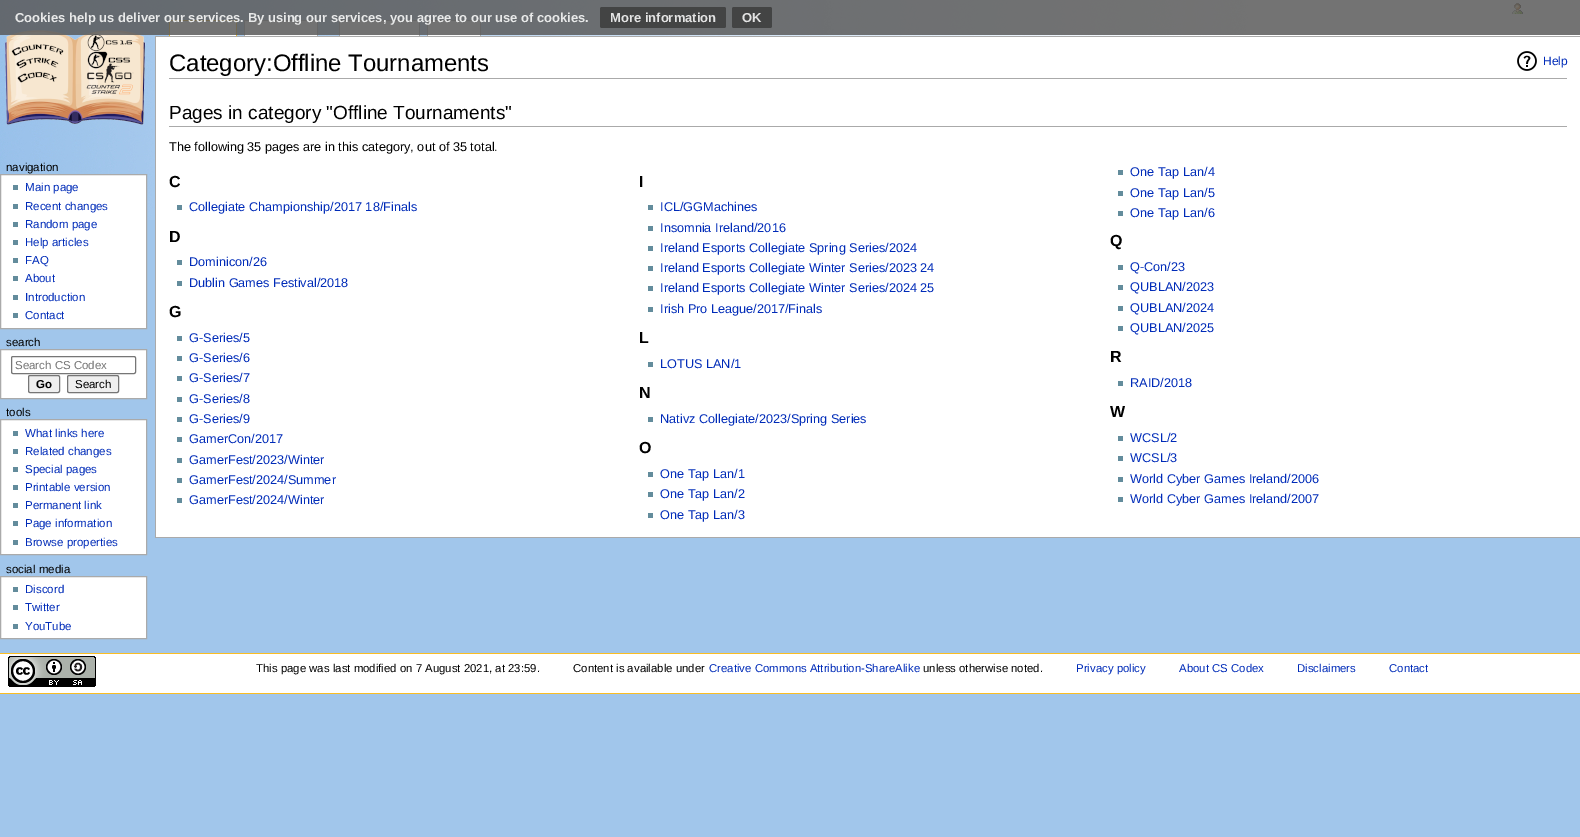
%!PS-Adobe-3.0
%%BoundingBox: 0 0 1580 837
%%LanguageLevel: 3
%%Pages: 1
%%EndComments
%%BeginProlog
/setink { 3 { 255 div 3 1 roll } repeat setrgbcolor } def
/usefont { [ exch dup neg 0 0 3 -1 roll 0 0 ] selectfont } def
/drawtext { setink usefont moveto show } def
/fillbox { setink rectfill } def
/setalpha { dup .setfillconstantalpha .setstrokeconstantalpha } def
/rrect { 5 dict begin { /r /h /w /y /x } { exch def } forall
  x r add y moveto x w add y 2 copy h add r arct x w add y h add x 1 index r arct
  x y h add x y r arct x y 2 copy exch w add exch r arct closepath end } def
/drawimage { 5 dict begin { /h /w /y /x /name } { exch def } forall
  gsave x y translate w h scale
  w h 8 [w 0 0 h 0 0] name (r) file false 3 colorimage grestore end } def
%%EndProlog
%%BeginSetup
<< /PageSize [1580 837] /PageUsesTransparency true >> setpagedevice
%%EndSetup
%%Page: 1 1
0 .pushpdf14devicefilter
0 837 translate 1 -1 scale
4 setmiterlimit
0 0 1580 837 161 198 235 fillbox
(assets/img1.rgb) 0 0 1580 220 drawimage
(assets/img2.rgb) 1512 3 11 11 drawimage
169 20 68 1 250 189 35 fillbox
169 20 1 16 250 189 35 fillbox
236 20 1 16 250 189 35 fillbox
244 20 74 1 170 170 170 fillbox
244 20 1 16 170 170 170 fillbox
317 20 1 16 170 170 170 fillbox
339 20 81 1 170 170 170 fillbox
339 20 1 16 170 170 170 fillbox
419 20 1 16 170 170 170 fillbox
427 20 54 1 170 170 170 fillbox
170 21 66 15 255 255 255 fillbox
245 21 72 15 251 251 251 fillbox
340 21 79 15 251 251 251 fillbox
427 20 1 16 170 170 170 fillbox
428 21 52 15 251 251 251 fillbox
480 20 1 16 170 170 170 fillbox
(assets/img3.rgb) 5 30 141 95 drawimage
0.85 setalpha
0 0 1580 35 90 90 90 fillbox
1 setalpha
(Cookies help us deliver our services. By using our services, you agree to our use of cookies.) 15 22 /LiberationSans-Bold 13 232 233 233 drawtext
67 68 68 setink
600 7 126 21 2 rrect fill
(More information) 610 22 /LiberationSans-Bold 13 227 227 227 drawtext
67 68 68 setink
732 7 40 21 2 rrect fill
(OK) 742 22 /LiberationSans-Bold 13 227 227 227 drawtext
(navigation) 6 171 /LiberationSans-Regular 11.5 0 0 0 drawtext
255 255 255 setink
0.5 174.5 moveto 146.5 174.5 lineto 146.5 328.5 lineto 0.5 328.5 lineto closepath gsave fill grestore
170 170 170 setink
stroke
13 185 5 5 99 140 156 fillbox
(Main page) 25 191 /LiberationSans-Regular 11.5 0 43 184 drawtext
13 204 5 5 99 140 156 fillbox
(Recent changes) 25 210 /LiberationSans-Regular 11.5 0 43 184 drawtext
13 222 5 5 99 140 156 fillbox
(Random page) 25 228 /LiberationSans-Regular 11.5 0 43 184 drawtext
13 240 5 5 99 140 156 fillbox
(Help articles) 25 246 /LiberationSans-Regular 11.5 0 43 184 drawtext
13 258 5 5 99 140 156 fillbox
(FAQ) 25 264 /LiberationSans-Regular 11.5 0 43 184 drawtext
13 276 5 5 99 140 156 fillbox
(About) 25 282 /LiberationSans-Regular 11.5 0 43 184 drawtext
13 295 5 5 99 140 156 fillbox
(Introduction) 25 301 /LiberationSans-Regular 11.5 0 43 184 drawtext
13 313 5 5 99 140 156 fillbox
(Contact) 25 319 /LiberationSans-Regular 11.5 0 43 184 drawtext
(search) 6 346 /LiberationSans-Regular 11.5 0 0 0 drawtext
255 255 255 setink
0.5 349.5 moveto 146.5 349.5 lineto 146.5 398.5 lineto 0.5 398.5 lineto closepath gsave fill grestore
170 170 170 setink
stroke
118 118 118 setink
11.5 356.5 124 17 1.5 rrect stroke
(Search CS Codex) 15 369 /LiberationSans-Regular 11.5 117 117 117 drawtext
239 239 239 setink
28.5 375.5 31 17 1.5 rrect gsave fill grestore
118 118 118 setink
stroke
(Go) 36 388 /LiberationSans-Bold 11.5 0 0 0 drawtext
239 239 239 setink
67.5 375.5 51 17 1.5 rrect gsave fill grestore
118 118 118 setink
stroke
(Search) 75 388 /LiberationSans-Regular 11.5 0 0 0 drawtext
(tools) 6 416 /LiberationSans-Regular 11.5 0 0 0 drawtext
255 255 255 setink
0.5 419.5 moveto 146.5 419.5 lineto 146.5 554.5 lineto 0.5 554.5 lineto closepath gsave fill grestore
170 170 170 setink
stroke
13 431 5 5 99 140 156 fillbox
(What links here) 25 437 /LiberationSans-Regular 11.5 0 43 184 drawtext
13 449 5 5 99 140 156 fillbox
(Related changes) 25 455 /LiberationSans-Regular 11.5 0 43 184 drawtext
13 467 5 5 99 140 156 fillbox
(Special pages) 25 473 /LiberationSans-Regular 11.5 0 43 184 drawtext
13 485 5 5 99 140 156 fillbox
(Printable version) 25 491 /LiberationSans-Regular 11.5 0 43 184 drawtext
13 503 5 5 99 140 156 fillbox
(Permanent link) 25 509 /LiberationSans-Regular 11.5 0 43 184 drawtext
13 521 5 5 99 140 156 fillbox
(Page information) 25 527 /LiberationSans-Regular 11.5 0 43 184 drawtext
13 540 5 5 99 140 156 fillbox
(Browse properties) 25 546 /LiberationSans-Regular 11.5 0 43 184 drawtext
(social media) 6 573 /LiberationSans-Regular 11.5 0 0 0 drawtext
255 255 255 setink
0.5 576.5 moveto 146.5 576.5 lineto 146.5 638.5 lineto 0.5 638.5 lineto closepath gsave fill grestore
170 170 170 setink
stroke
13 587 5 5 99 140 156 fillbox
(Discord) 25 593 /LiberationSans-Regular 11.5 0 43 184 drawtext
13 605 5 5 99 140 156 fillbox
(Twitter) 25 611 /LiberationSans-Regular 11.5 0 43 184 drawtext
13 624 5 5 99 140 156 fillbox
(YouTube) 25 630 /LiberationSans-Regular 11.5 0 43 184 drawtext
156 37 1424 500 255 255 255 fillbox
155 36 1425 1 170 170 170 fillbox
155 537 1425 1 170 170 170 fillbox
155 36 1 502 170 170 170 fillbox
169 78 1398 1 170 170 170 fillbox
(Category:Offline Tournaments) 169 71 /LiberationSans-Regular 23.9 0 0 0 drawtext
(assets/img4.rgb) 1517 51 20 20 drawimage
(Help) 1543 65 /LiberationSans-Regular 12 0 43 184 drawtext
169 126 1398 1 170 170 170 fillbox
(Pages in category "Offline Tournaments") 169 119 /LiberationSans-Regular 19 0 0 0 drawtext
(The following 35 pages are in this category, out of 35 total.) 169 151 /LiberationSans-Regular 12.7 0 0 0 drawtext
(C) 169 187 /LiberationSans-Bold 16 0 0 0 drawtext
177 205 5 5 99 140 156 fillbox
(Collegiate Championship/2017 18/Finals) 189 211 /LiberationSans-Regular 12.7 0 43 184 drawtext
(O) 639 453 /LiberationSans-Bold 16 0 0 0 drawtext
1118 170 5 5 99 140 156 fillbox
(One Tap Lan/4) 1130 176 /LiberationSans-Regular 12.7 0 43 184 drawtext
1118 191 5 5 99 140 156 fillbox
(One Tap Lan/5) 1130 197 /LiberationSans-Regular 12.7 0 43 184 drawtext
1118 211 5 5 99 140 156 fillbox
(One Tap Lan/6) 1130 217 /LiberationSans-Regular 12.7 0 43 184 drawtext
648 472 5 5 99 140 156 fillbox
(One Tap Lan/1) 660 478 /LiberationSans-Regular 12.7 0 43 184 drawtext
648 492 5 5 99 140 156 fillbox
(One Tap Lan/2) 660 498 /LiberationSans-Regular 12.7 0 43 184 drawtext
648 513 5 5 99 140 156 fillbox
(One Tap Lan/3) 660 519 /LiberationSans-Regular 12.7 0 43 184 drawtext
(D) 169 242 /LiberationSans-Bold 16 0 0 0 drawtext
177 260 5 5 99 140 156 fillbox
(Dominicon/26) 189 266 /LiberationSans-Regular 12.7 0 43 184 drawtext
177 281 5 5 99 140 156 fillbox
(Dublin Games Festival/2018) 189 287 /LiberationSans-Regular 12.7 0 43 184 drawtext
(I) 639 187 /LiberationSans-Bold 16 0 0 0 drawtext
648 205 5 5 99 140 156 fillbox
(ICL/GGMachines) 660 211 /LiberationSans-Regular 12.7 0 43 184 drawtext
648 226 5 5 99 140 156 fillbox
(Insomnia Ireland/2016) 660 232 /LiberationSans-Regular 12.7 0 43 184 drawtext
648 246 5 5 99 140 156 fillbox
(Ireland Esports Collegiate Spring Series/2024) 660 252 /LiberationSans-Regular 12.7 0 43 184 drawtext
648 266 5 5 99 140 156 fillbox
(Ireland Esports Collegiate Winter Series/2023 24) 660 272 /LiberationSans-Regular 12.7 0 43 184 drawtext
648 286 5 5 99 140 156 fillbox
(Ireland Esports Collegiate Winter Series/2024 25) 660 292 /LiberationSans-Regular 12.7 0 43 184 drawtext
648 307 5 5 99 140 156 fillbox
(Irish Pro League/2017/Finals) 660 313 /LiberationSans-Regular 12.7 0 43 184 drawtext
(Q) 1110 246 /LiberationSans-Bold 16 0 0 0 drawtext
1118 265 5 5 99 140 156 fillbox
(Q-Con/23) 1130 271 /LiberationSans-Regular 12.7 0 43 184 drawtext
1118 285 5 5 99 140 156 fillbox
(QUBLAN/2023) 1130 291 /LiberationSans-Regular 12.7 0 43 184 drawtext
1118 306 5 5 99 140 156 fillbox
(QUBLAN/2024) 1130 312 /LiberationSans-Regular 12.7 0 43 184 drawtext
1118 326 5 5 99 140 156 fillbox
(QUBLAN/2025) 1130 332 /LiberationSans-Regular 12.7 0 43 184 drawtext
(G) 169 317 /LiberationSans-Bold 16 0 0 0 drawtext
177 336 5 5 99 140 156 fillbox
(G-Series/5) 189 342 /LiberationSans-Regular 12.7 0 43 184 drawtext
177 356 5 5 99 140 156 fillbox
(G-Series/6) 189 362 /LiberationSans-Regular 12.7 0 43 184 drawtext
177 376 5 5 99 140 156 fillbox
(G-Series/7) 189 382 /LiberationSans-Regular 12.7 0 43 184 drawtext
177 397 5 5 99 140 156 fillbox
(G-Series/8) 189 403 /LiberationSans-Regular 12.7 0 43 184 drawtext
177 417 5 5 99 140 156 fillbox
(G-Series/9) 189 423 /LiberationSans-Regular 12.7 0 43 184 drawtext
177 437 5 5 99 140 156 fillbox
(GamerCon/2017) 189 443 /LiberationSans-Regular 12.7 0 43 184 drawtext
177 458 5 5 99 140 156 fillbox
(GamerFest/2023/Winter) 189 464 /LiberationSans-Regular 12.7 0 43 184 drawtext
177 478 5 5 99 140 156 fillbox
(GamerFest/2024/Summer) 189 484 /LiberationSans-Regular 12.7 0 43 184 drawtext
177 498 5 5 99 140 156 fillbox
(GamerFest/2024/Winter) 189 504 /LiberationSans-Regular 12.7 0 43 184 drawtext
(L) 639 343 /LiberationSans-Bold 16 0 0 0 drawtext
648 362 5 5 99 140 156 fillbox
(LOTUS LAN/1) 660 368 /LiberationSans-Regular 12.7 0 43 184 drawtext
(R) 1110 362 /LiberationSans-Bold 16 0 0 0 drawtext
1118 381 5 5 99 140 156 fillbox
(RAID/2018) 1130 387 /LiberationSans-Regular 12.7 0 43 184 drawtext
(N) 639 398 /LiberationSans-Bold 16 0 0 0 drawtext
648 417 5 5 99 140 156 fillbox
(Nativz Collegiate/2023/Spring Series) 660 423 /LiberationSans-Regular 12.7 0 43 184 drawtext
(W) 1110 417 /LiberationSans-Bold 16 0 0 0 drawtext
1118 436 5 5 99 140 156 fillbox
(WCSL/2) 1130 442 /LiberationSans-Regular 12.7 0 43 184 drawtext
1118 456 5 5 99 140 156 fillbox
(WCSL/3) 1130 462 /LiberationSans-Regular 12.7 0 43 184 drawtext
1118 477 5 5 99 140 156 fillbox
(World Cyber Games Ireland/2006) 1130 483 /LiberationSans-Regular 12.7 0 43 184 drawtext
1118 497 5 5 99 140 156 fillbox
(World Cyber Games Ireland/2007) 1130 503 /LiberationSans-Regular 12.7 0 43 184 drawtext
0 654 1580 39 255 255 255 fillbox
0 653 1580 1 250 189 35 fillbox
0 693 1580 1 250 189 35 fillbox
(assets/img5.rgb) 8 656 88 31 drawimage
(This page was last modified on 7 August 2021, at 23:59.) 256 672 /LiberationSans-Regular 11.4 0 0 0 drawtext
(Content is available under) 573 672 /LiberationSans-Regular 11.4 0 0 0 drawtext
(Creative Commons Attribution-ShareAlike) 709 672 /LiberationSans-Regular 11.4 0 43 184 drawtext
(unless otherwise noted.) 923 672 /LiberationSans-Regular 11.4 0 0 0 drawtext
(Privacy policy) 1076 672 /LiberationSans-Regular 11.4 0 43 184 drawtext
(About CS Codex) 1179 672 /LiberationSans-Regular 11.4 0 43 184 drawtext
(Disclaimers) 1297 672 /LiberationSans-Regular 11.4 0 43 184 drawtext
(Contact) 1389 672 /LiberationSans-Regular 11.4 0 43 184 drawtext
.poppdf14devicefilter showpage
%%EOF
